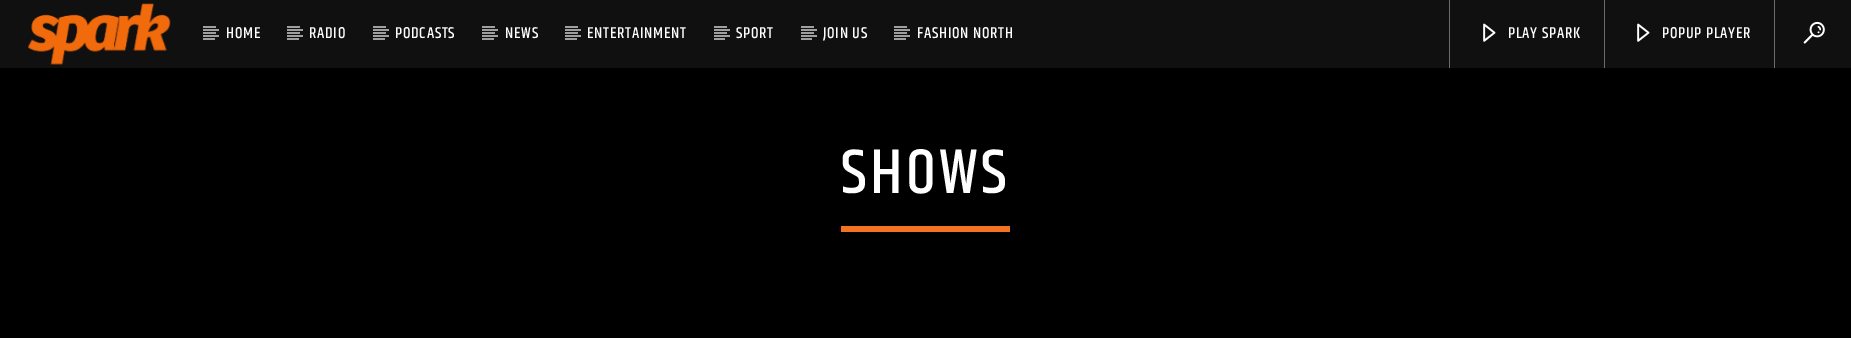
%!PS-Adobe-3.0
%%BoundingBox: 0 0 1851 338
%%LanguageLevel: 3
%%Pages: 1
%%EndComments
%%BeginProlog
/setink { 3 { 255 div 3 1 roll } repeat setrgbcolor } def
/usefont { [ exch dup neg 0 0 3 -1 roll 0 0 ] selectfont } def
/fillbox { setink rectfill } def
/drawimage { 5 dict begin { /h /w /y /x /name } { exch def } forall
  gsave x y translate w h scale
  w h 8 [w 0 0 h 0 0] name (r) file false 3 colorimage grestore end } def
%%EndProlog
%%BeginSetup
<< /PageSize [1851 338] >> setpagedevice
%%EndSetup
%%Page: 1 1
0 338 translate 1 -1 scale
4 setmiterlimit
0 0 1851 338 0 0 0 fillbox
0 0 1851 68 16 16 16 fillbox
(assets/img1.rgb) 28 3 143 62 drawimage
203 38 12 2 159 159 159 fillbox
203 26 13 2 159 159 159 fillbox
203 32 13 2 159 159 159 fillbox
/Khand-Medium 16 usefont
255 255 255 setink
226 38 moveto 0.75 0 (HOME) ashow
203 29 16 2 159 159 159 fillbox
203 35 16 2 159 159 159 fillbox
287 38 12 2 159 159 159 fillbox
287 26 13 2 159 159 159 fillbox
287 32 13 2 159 159 159 fillbox
255 255 255 setink
309 38 moveto 0.75 0 (RADIO) ashow
287 29 16 2 159 159 159 fillbox
287 35 16 2 159 159 159 fillbox
373 38 12 2 159 159 159 fillbox
373 26 13 2 159 159 159 fillbox
373 32 13 2 159 159 159 fillbox
255 255 255 setink
395 38 moveto 0.75 0 (PODCASTS) ashow
373 29 16 2 159 159 159 fillbox
373 35 16 2 159 159 159 fillbox
482 38 12 2 159 159 159 fillbox
482 26 13 2 159 159 159 fillbox
482 32 13 2 159 159 159 fillbox
255 255 255 setink
505 38 moveto 0.75 0 (NEWS) ashow
482 29 16 2 159 159 159 fillbox
482 35 16 2 159 159 159 fillbox
565 26 13 2 159 159 159 fillbox
565 32 13 2 159 159 159 fillbox
255 255 255 setink
587 38 moveto 0.75 0 (ENTERTAINMENT) ashow
565 29 16 2 159 159 159 fillbox
565 35 16 2 159 159 159 fillbox
565 38 12 2 159 159 159 fillbox
714 38 11 2 159 159 159 fillbox
714 26 13 2 159 159 159 fillbox
714 32 13 2 159 159 159 fillbox
255 255 255 setink
736 38 moveto 0.75 0 (SPORT) ashow
714 29 16 2 159 159 159 fillbox
714 35 16 2 159 159 159 fillbox
801 38 11 2 159 159 159 fillbox
801 26 13 2 159 159 159 fillbox
801 32 13 2 159 159 159 fillbox
255 255 255 setink
823 38 moveto 0.75 0 (JOIN US) ashow
801 29 16 2 159 159 159 fillbox
801 35 16 2 159 159 159 fillbox
894 38 12 2 159 159 159 fillbox
894 26 13 2 159 159 159 fillbox
894 32 13 2 159 159 159 fillbox
255 255 255 setink
917 38 moveto 0.75 0 (FASHION NORTH) ashow
894 29 16 2 159 159 159 fillbox
894 35 16 2 159 159 159 fillbox
1449 0 1 68 107 107 107 fillbox
(assets/img2.rgb) 1483 23 13 19 drawimage
255 255 255 setink
1508 38 moveto 0.75 0 (PLAY SPARK) ashow
1604 0 1 68 107 107 107 fillbox
(assets/img2.rgb) 1637 23 13 19 drawimage
255 255 255 setink
1662 38 moveto 0.75 0 (POPUP PLAYER) ashow
1774 0 1 68 107 107 107 fillbox
(assets/img3.rgb) 1803 21 22 23 drawimage
841 226 169 6 243 115 34 fillbox
/Khand-Medium 64 usefont
255 255 255 setink
841 193 moveto 3.25 0 (SHOWS) ashow
showpage
%%EOF
